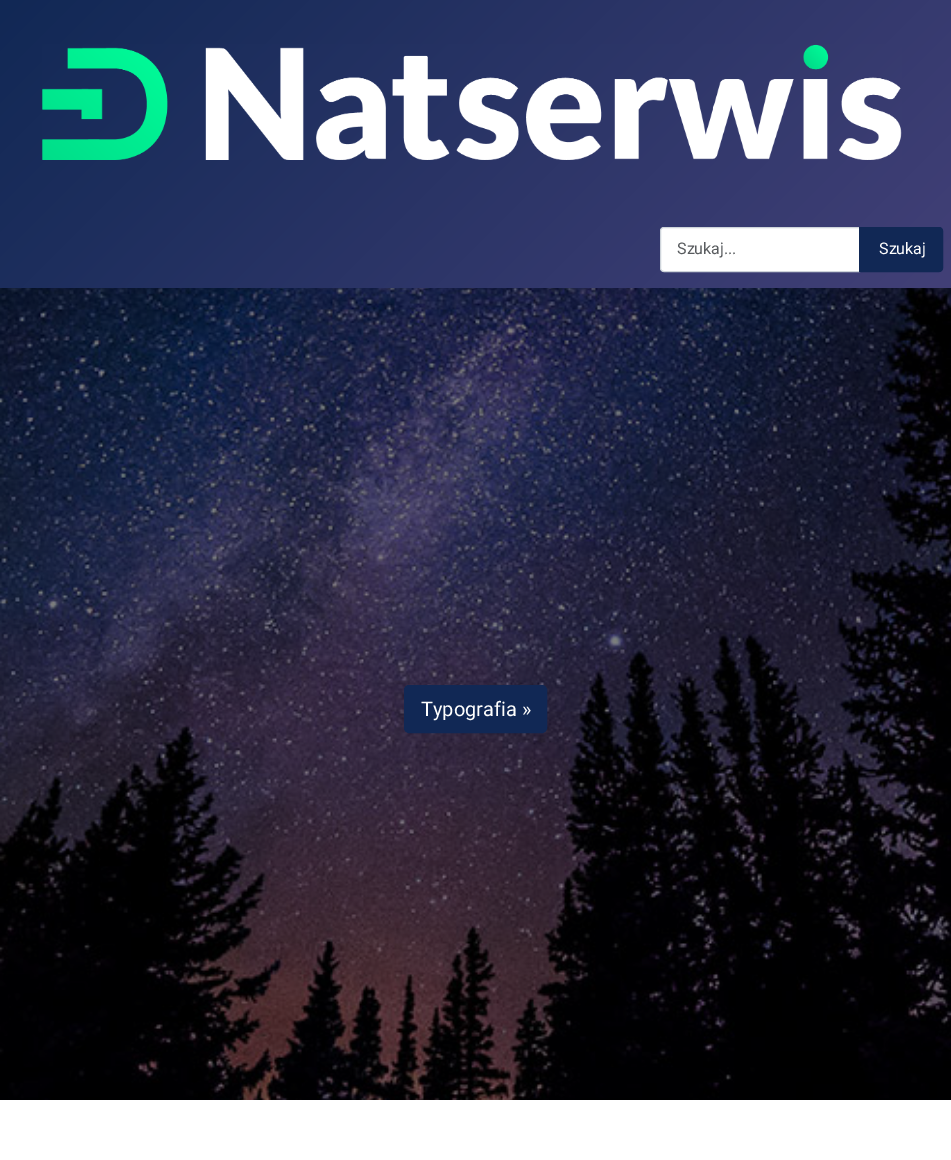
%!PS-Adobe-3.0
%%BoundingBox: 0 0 951 1160
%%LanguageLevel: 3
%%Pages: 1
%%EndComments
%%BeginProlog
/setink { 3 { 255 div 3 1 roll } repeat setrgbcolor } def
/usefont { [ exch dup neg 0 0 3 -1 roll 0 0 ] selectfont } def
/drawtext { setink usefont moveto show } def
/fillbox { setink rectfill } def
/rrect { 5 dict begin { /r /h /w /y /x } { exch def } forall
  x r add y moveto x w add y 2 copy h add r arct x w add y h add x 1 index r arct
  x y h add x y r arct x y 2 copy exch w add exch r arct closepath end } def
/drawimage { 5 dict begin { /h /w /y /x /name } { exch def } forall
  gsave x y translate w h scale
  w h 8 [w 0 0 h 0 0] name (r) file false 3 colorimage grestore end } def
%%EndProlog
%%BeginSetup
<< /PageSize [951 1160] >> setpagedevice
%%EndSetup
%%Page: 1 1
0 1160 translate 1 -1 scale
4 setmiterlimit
0 0 951 1160 255 255 255 fillbox
gsave 0 0 moveto 951 0 lineto 951 288 lineto 0 288 lineto closepath clip newpath
<< /ShadingType 2 /ColorSpace /DeviceRGB /Coords [166 -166 785 454] /Extend [true true] /Function << /FunctionType 2 /Domain [0 1] /C0 [0.067 0.157 0.333] /C1 [0.259 0.251 0.467] /N 1 >> >> shfill grestore
(assets/img1.rgb) 42 44 860 116 drawimage
664 227.5 moveto 859.5 227.5 lineto 859.5 271.5 lineto 664 271.5 lineto 662 271.5 660.5 270 660.5 268 curveto 660.5 231 lineto 660.5 229 662 227.5 664 227.5 curveto closepath gsave fill grestore
206 212 218 setink
stroke
(Szukaj...) 677 254 /Roboto-Regular 16 89 92 95 drawtext
17 40 85 setink
859.5 227.5 moveto 939 227.5 lineto 941 227.5 942.5 229 942.5 231 curveto 942.5 268 lineto 942.5 270 941 271.5 939 271.5 curveto 859.5 271.5 lineto closepath gsave fill grestore
stroke
(Szukaj) 879 254 /Roboto-Regular 16 255 255 255 drawtext
(assets/img2.rgb) 0 288 951 812 drawimage
17 40 85 setink
404.5 685.5 142 47 4.5 rrect gsave fill grestore
stroke
(Typografia ») 421 716 /Roboto-Regular 20 255 255 255 drawtext
showpage
%%EOF
